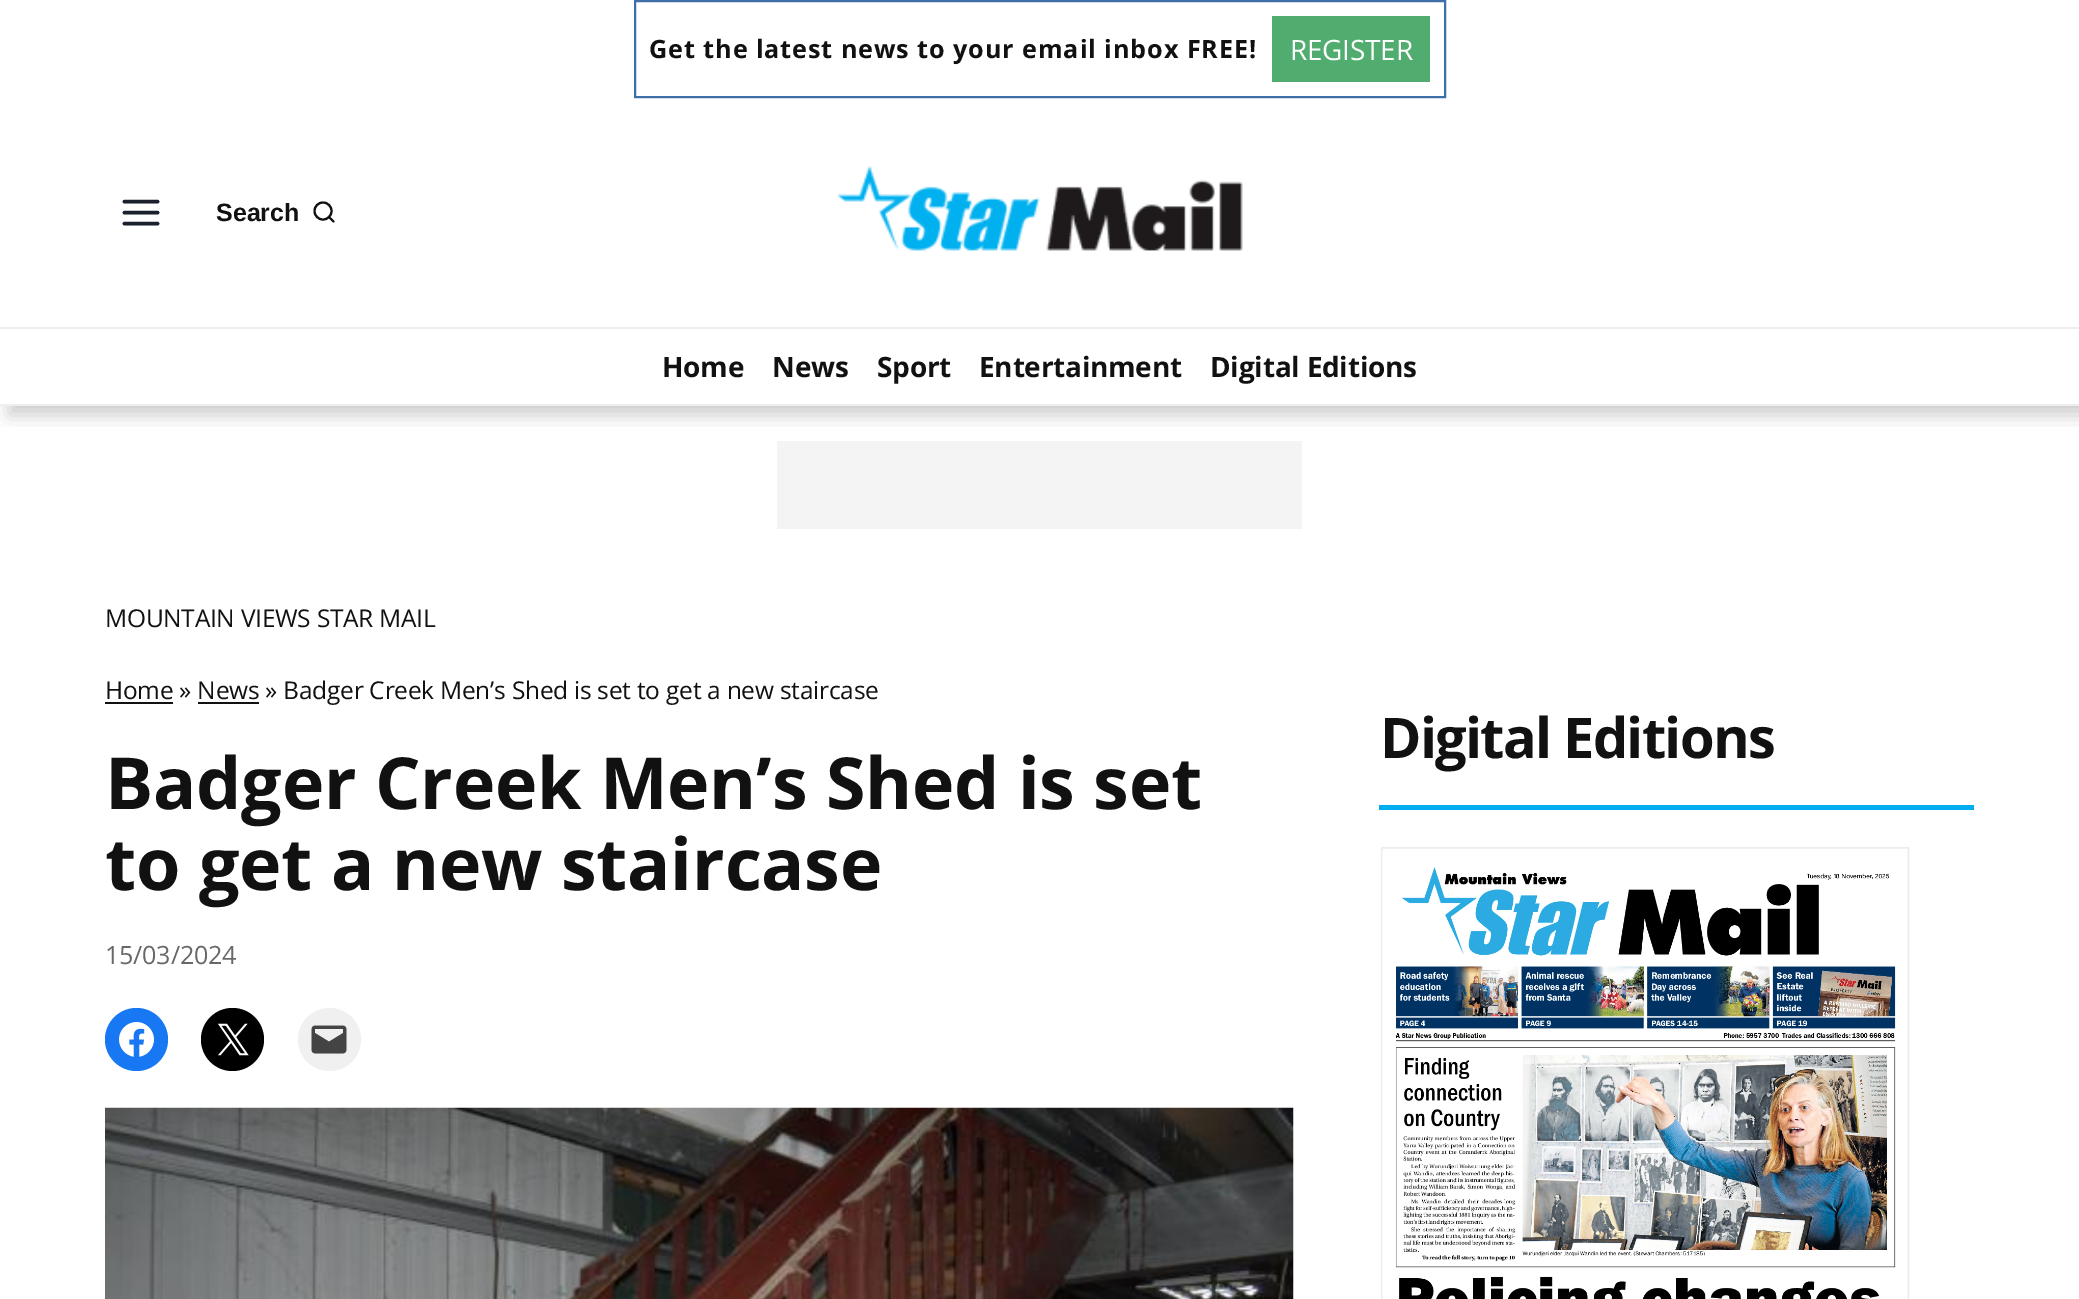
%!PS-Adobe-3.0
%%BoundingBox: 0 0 2079 1299
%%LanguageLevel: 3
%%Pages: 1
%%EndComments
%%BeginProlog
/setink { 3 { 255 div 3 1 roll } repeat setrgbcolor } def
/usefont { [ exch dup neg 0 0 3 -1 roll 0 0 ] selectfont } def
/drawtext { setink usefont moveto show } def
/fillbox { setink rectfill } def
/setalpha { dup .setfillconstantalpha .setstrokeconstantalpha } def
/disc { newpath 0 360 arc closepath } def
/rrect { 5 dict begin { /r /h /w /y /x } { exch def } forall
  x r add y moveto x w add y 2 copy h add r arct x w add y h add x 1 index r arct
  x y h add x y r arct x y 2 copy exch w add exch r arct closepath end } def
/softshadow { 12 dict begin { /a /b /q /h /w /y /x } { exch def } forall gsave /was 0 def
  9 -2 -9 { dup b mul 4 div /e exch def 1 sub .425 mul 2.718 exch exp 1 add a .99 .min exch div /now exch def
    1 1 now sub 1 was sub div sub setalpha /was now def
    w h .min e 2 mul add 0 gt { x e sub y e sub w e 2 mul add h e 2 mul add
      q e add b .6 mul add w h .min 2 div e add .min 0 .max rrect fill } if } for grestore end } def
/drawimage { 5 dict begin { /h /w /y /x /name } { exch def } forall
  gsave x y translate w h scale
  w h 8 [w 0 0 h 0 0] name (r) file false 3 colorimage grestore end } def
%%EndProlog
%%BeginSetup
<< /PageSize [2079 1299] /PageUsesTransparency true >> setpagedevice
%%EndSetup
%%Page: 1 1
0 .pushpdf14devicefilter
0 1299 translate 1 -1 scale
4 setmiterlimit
0 0 2079 1299 255 255 255 fillbox
gsave
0 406 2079 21 rectclip
0 0 0 setink
9 9 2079 406 0 9 0.2 softshadow
grestore
62 111 167 setink
2 setlinewidth
635 1 810 96 rectstroke
/OpenSans-Bold 25.2 usefont
17 17 17 setink
649 58 moveto 0.9 0 (Get the latest news to your email inbox FREE!) ashow
1272 16 158 66 80 173 111 fillbox
/OpenSans-Regular 28 usefont
255 255 255 setink
1290 60 moveto -0.25 0 (REGISTER) ashow
26 32 44 setink
3.6 setlinewidth
1 setlinecap
1 setlinejoin
124.5 212.5 moveto 157.5 212.5 lineto 124.5 201.5 moveto 157.5 201.5 lineto 124.5 223.5 moveto 157.5 223.5 lineto stroke
(Search) 216 221 /LiberationSans-Bold 25 17 17 17 drawtext
2.1 setlinewidth
0 setlinecap
0 setlinejoin
323 211 8.5 disc stroke
1 setlinecap
1 setlinejoin
333.5 221.5 moveto 329 217 lineto stroke
(assets/img1.rgb) 837 166 406 85 drawimage
0 327 2079 2 238 238 238 fillbox
0 404 2079 2 238 238 238 fillbox
/OpenSans-Bold 28 usefont
17 17 17 setink
662 377 moveto -0.25 0 (Home) ashow
772 377 moveto -0.25 0 (News) ashow
877 377 moveto -0.25 0 (Sport) ashow
979 377 moveto -0.25 0 (Entertainment) ashow
1210 377 moveto -0.25 0 (Digital Editions) ashow
777 441 525 88 244 244 244 fillbox
/OpenSans-Regular 24.5 usefont
17 17 17 setink
105 627 moveto -0.25 0 (MOUNTAIN VIEWS STAR MAIL) ashow
105 702 68 2 17 17 17 fillbox
105 699 moveto -0.25 0 (Home » News » Badger Creek Men’s Shed is set to get a new staircase) ashow
198 702 61 2 17 17 17 fillbox
/OpenSans-Bold 71.75 usefont
105 809 moveto -0.2 0 (Badger Creek Men’s Shed is set) ashow
105 890 moveto -0.2 0 (to get a new staircase) ashow
/OpenSans-Regular 25.2 usefont
104 104 104 setink
105 964 moveto -0.25 0 (15/03/2024) ashow
24 119 242 setink
136.5 1039.5 31.5 disc fill
(assets/img2.rgb) 119 1022 35 35 drawimage
0 0 0 setink
232.5 1039.5 31.5 disc fill
(assets/img3.rgb) 218 1023 31 33 drawimage
240 240 240 setink
329.5 1039.5 31.5 disc fill
(assets/img4.rgb) 311 1025 36 29 drawimage
(assets/img5.rgb) 105 1107 1189 192 drawimage
/OpenSans-Bold 56 usefont
17 17 17 setink
1380 758 moveto -1.75 0 (Digital Editions) ashow
1379 805 595 5 0 173 238 fillbox
237 236 236 setink
2 setlinewidth
0 setlinecap
0 setlinejoin
1382 848 526 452 rectstroke
(assets/img6.rgb) 1382 848 526 451 drawimage
.poppdf14devicefilter showpage
%%EOF
